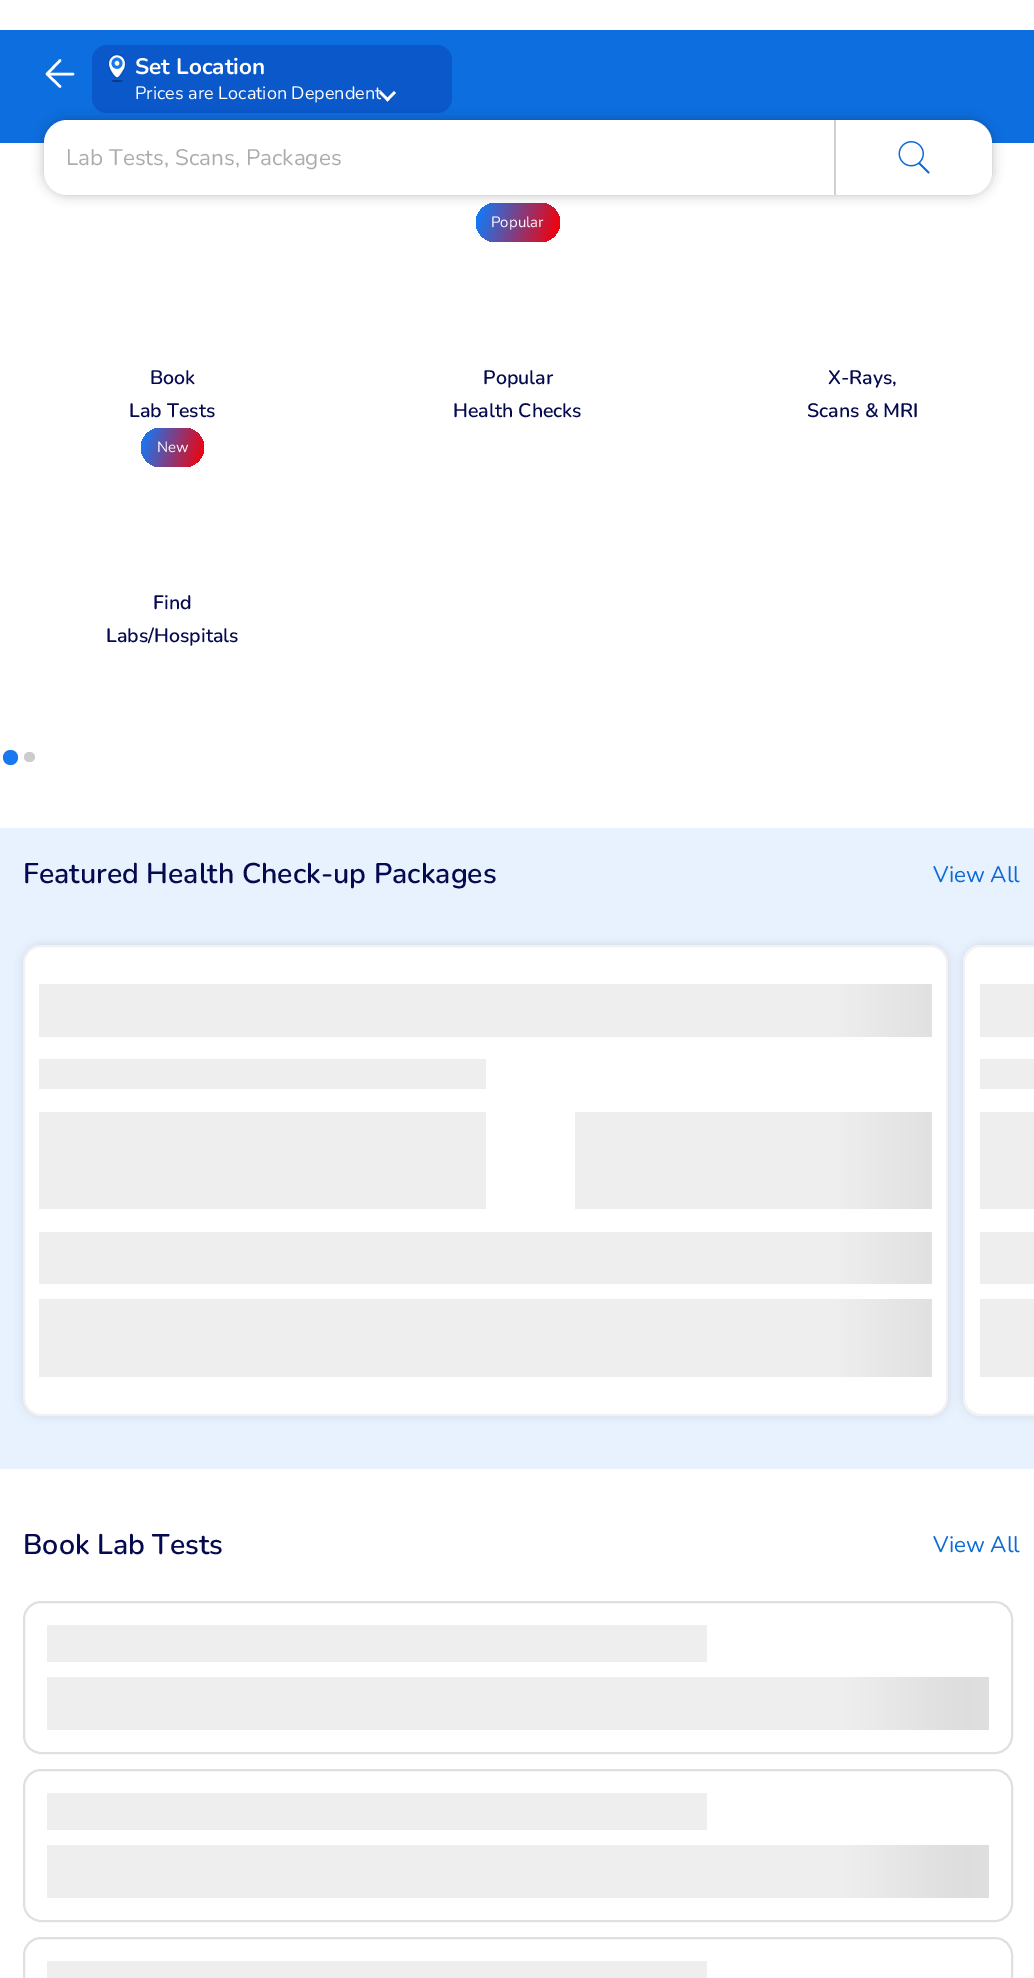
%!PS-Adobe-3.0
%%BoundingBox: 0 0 1034 1978
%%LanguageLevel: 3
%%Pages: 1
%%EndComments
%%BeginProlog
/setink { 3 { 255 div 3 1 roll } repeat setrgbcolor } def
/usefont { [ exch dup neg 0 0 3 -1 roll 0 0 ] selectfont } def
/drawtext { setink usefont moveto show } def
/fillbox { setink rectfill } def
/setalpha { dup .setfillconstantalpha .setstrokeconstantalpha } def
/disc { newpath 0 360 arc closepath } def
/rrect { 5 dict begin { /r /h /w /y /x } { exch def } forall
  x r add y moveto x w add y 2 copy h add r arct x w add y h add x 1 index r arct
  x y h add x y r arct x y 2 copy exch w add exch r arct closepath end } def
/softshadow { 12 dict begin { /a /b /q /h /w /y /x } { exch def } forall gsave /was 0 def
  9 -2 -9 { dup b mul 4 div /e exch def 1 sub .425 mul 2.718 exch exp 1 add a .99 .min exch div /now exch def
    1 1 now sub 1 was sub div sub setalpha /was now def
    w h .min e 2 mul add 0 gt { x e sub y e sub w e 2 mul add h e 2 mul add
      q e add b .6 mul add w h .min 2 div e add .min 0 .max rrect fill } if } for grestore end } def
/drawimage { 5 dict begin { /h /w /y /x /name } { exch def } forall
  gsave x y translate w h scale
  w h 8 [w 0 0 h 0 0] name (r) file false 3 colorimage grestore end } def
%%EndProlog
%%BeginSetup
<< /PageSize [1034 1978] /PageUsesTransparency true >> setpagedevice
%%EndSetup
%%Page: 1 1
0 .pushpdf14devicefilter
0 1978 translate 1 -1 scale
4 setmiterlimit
0 0 1034 1978 255 255 255 fillbox
0 30 1034 113 13 110 223 fillbox
255 255 255 setink
2.5 setlinewidth
1 setlinecap
1 setlinejoin
60 60.5 moveto 47 74 lineto 60 86.5 lineto stroke
0 setlinejoin
48 74 moveto 73 74 lineto stroke
10 88 202 setink
92 45 360 68 15 rrect fill
(assets/img1.rgb) 108 54 18 28 drawimage
(Set Location) 135 74 /Nunito-Bold 22.5 255 255 255 drawtext
gsave
135 81 246 24 rectclip
(Prices are Location Dependent) 135 99 /Nunito-Regular 18 255 255 255 drawtext
grestore
385.5 99.5 moveto 394 91 lineto 396 93 lineto 387.5 101.5 lineto closepath fill
379 93 moveto 381 91 lineto 389.5 99.5 lineto 387.5 101.5 lineto closepath fill
gsave 476 203 84 39 19.5 rrect clip newpath
<< /ShadingType 2 /ColorSpace /DeviceRGB /Coords [474 209 561 235] /Extend [true true] /Function << /FunctionType 3 /Domain [0 1] /Functions [<< /FunctionType 2 /Domain [0 1] /C0 [0.09 0.471 0.949] /C1 [0.09 0.471 0.949] /N 1 >> << /FunctionType 2 /Domain [0 1] /C0 [0.09 0.471 0.949] /C1 [0.957 0 0.035] /N 1 >> << /FunctionType 2 /Domain [0 1] /C0 [0.957 0 0.035] /C1 [0.957 0 0.035] /N 1 >>] /Bounds [0.07 0.96] /Encode [0 1 0 1 0 1] >> >> shfill grestore
24 24 24 setink
44 120 948 75 23 6 0.3 softshadow
255 255 255 setink
67 120 moveto 834 120 lineto 834 195 lineto 67 195 lineto 54.5 195 44 184.5 44 172 curveto 44 143 lineto 44 130.5 54.5 120 67 120 curveto closepath fill
(Lab Tests, Scans, Packages) 66 165 /Nunito-Regular 22.5 172 172 172 drawtext
255 255 255 setink
834 120 moveto 969 120 lineto 981.5 120 992 130.5 992 143 curveto 992 172 lineto 992 184.5 981.5 195 969 195 curveto 834 195 lineto closepath fill
834 120 2 75 208 208 208 fillbox
(assets/img2.rgb) 898 141 32 33 drawimage
(Book) 150 384 /Nunito-SemiBold 19.5 5 10 78 drawtext
(Lab Tests) 129 417 /Nunito-SemiBold 19.5 5 10 78 drawtext
(Popular) 491 227 /Nunito-Regular 15 255 255 255 drawtext
(Popular) 483 384 /Nunito-SemiBold 19.5 5 10 78 drawtext
(Health Checks) 453 417 /Nunito-SemiBold 19.5 5 10 78 drawtext
(X-Rays,) 828 384 /Nunito-SemiBold 19.5 5 10 78 drawtext
(Scans & MRI) 807 417 /Nunito-SemiBold 19.5 5 10 78 drawtext
gsave 141 428 63 39 19.5 rrect clip newpath
<< /ShadingType 2 /ColorSpace /DeviceRGB /Coords [138 437 207 457] /Extend [true true] /Function << /FunctionType 3 /Domain [0 1] /Functions [<< /FunctionType 2 /Domain [0 1] /C0 [0.09 0.471 0.949] /C1 [0.09 0.471 0.949] /N 1 >> << /FunctionType 2 /Domain [0 1] /C0 [0.09 0.471 0.949] /C1 [0.957 0 0.035] /N 1 >> << /FunctionType 2 /Domain [0 1] /C0 [0.957 0 0.035] /C1 [0.957 0 0.035] /N 1 >>] /Bounds [0.07 0.96] /Encode [0 1 0 1 0 1] >> >> shfill grestore
(New) 157 452 /Nunito-Regular 15 255 255 255 drawtext
(Find) 153 609 /Nunito-SemiBold 19.5 5 10 78 drawtext
(Labs/Hospitals) 106 642 /Nunito-SemiBold 19.5 5 10 78 drawtext
23 120 242 setink
10.5 757.5 7.5 disc fill
204 204 204 setink
24 752 11 10 5 rrect fill
0 828 1034 641 232 242 254 fillbox
(Featured Health Check-up Packages) 23 883 /Nunito-SemiBold 28.5 5 10 78 drawtext
(View All) 933 882 /Nunito-Regular 22.5 12 106 212 drawtext
0 0 0 setink
23 945 925 471 18 4.5 0.1 softshadow
255 255 255 setink
24 946 923 469 17 rrect gsave fill grestore
242 242 242 setink
2 setlinewidth
0 setlinecap
stroke
gsave 39 984 moveto 741 984 lineto 741 1377 lineto 39 1377 lineto closepath clip newpath
<< /ShadingType 2 /ColorSpace /DeviceRGB /Coords [-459 1062 741 1062] /Extend [true true] /Function << /FunctionType 3 /Domain [0 1] /Functions [<< /FunctionType 2 /Domain [0 1] /C0 [0.933 0.933 0.933] /C1 [0.933 0.933 0.933] /N 1 >> << /FunctionType 2 /Domain [0 1] /C0 [0.933 0.933 0.933] /C1 [0.867 0.867 0.867] /N 1 >> << /FunctionType 2 /Domain [0 1] /C0 [0.867 0.867 0.867] /C1 [0.933 0.933 0.933] /N 1 >> << /FunctionType 2 /Domain [0 1] /C0 [0.933 0.933 0.933] /C1 [0.933 0.933 0.933] /N 1 >>] /Bounds [0.08 0.18 0.33] /Encode [0 1 0 1 0 1 0 1] >> >> shfill grestore
gsave 741 984 moveto 932 984 lineto 932 1377 lineto 741 1377 lineto closepath clip newpath
<< /ShadingType 2 /ColorSpace /DeviceRGB /Coords [741 1062 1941 1062] /Extend [true true] /Function << /FunctionType 3 /Domain [0 1] /Functions [<< /FunctionType 2 /Domain [0 1] /C0 [0.933 0.933 0.933] /C1 [0.933 0.933 0.933] /N 1 >> << /FunctionType 2 /Domain [0 1] /C0 [0.933 0.933 0.933] /C1 [0.867 0.867 0.867] /N 1 >> << /FunctionType 2 /Domain [0 1] /C0 [0.867 0.867 0.867] /C1 [0.933 0.933 0.933] /N 1 >> << /FunctionType 2 /Domain [0 1] /C0 [0.933 0.933 0.933] /C1 [0.933 0.933 0.933] /N 1 >>] /Bounds [0.08 0.18 0.33] /Encode [0 1 0 1 0 1 0 1] >> >> shfill grestore
39 1037 893 22 255 255 255 fillbox
486 1059 446 30 255 255 255 fillbox
39 1089 893 23 255 255 255 fillbox
486 1112 89 97 255 255 255 fillbox
39 1209 893 23 255 255 255 fillbox
39 1284 893 15 255 255 255 fillbox
0 0 0 setink
963 945 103 471 18 4.5 0.1 softshadow
255 255 255 setink
981 945 moveto 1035 945 lineto 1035 1416 lineto 981 1416 lineto 971 1416 963 1408 963 1398 curveto 963 963 lineto 963 953 971 945 981 945 curveto closepath fill
242 242 242 setink
964 946 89 469 17 rrect stroke
gsave 980 984 moveto 1034 984 lineto 1034 1377 lineto 980 1377 lineto closepath clip newpath
<< /ShadingType 2 /ColorSpace /DeviceRGB /Coords [482 1062 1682 1062] /Extend [true true] /Function << /FunctionType 3 /Domain [0 1] /Functions [<< /FunctionType 2 /Domain [0 1] /C0 [0.933 0.933 0.933] /C1 [0.933 0.933 0.933] /N 1 >> << /FunctionType 2 /Domain [0 1] /C0 [0.933 0.933 0.933] /C1 [0.867 0.867 0.867] /N 1 >> << /FunctionType 2 /Domain [0 1] /C0 [0.867 0.867 0.867] /C1 [0.933 0.933 0.933] /N 1 >> << /FunctionType 2 /Domain [0 1] /C0 [0.933 0.933 0.933] /C1 [0.933 0.933 0.933] /N 1 >>] /Bounds [0.08 0.18 0.33] /Encode [0 1 0 1 0 1 0 1] >> >> shfill grestore
980 1037 54 22 255 255 255 fillbox
980 1089 54 23 255 255 255 fillbox
980 1209 54 23 255 255 255 fillbox
980 1284 54 15 255 255 255 fillbox
(Book Lab Tests) 23 1554 /Nunito-SemiBold 28.5 5 10 78 drawtext
(View All) 933 1552 /Nunito-Regular 22.5 12 106 212 drawtext
224 224 224 setink
24 1602 988 151 17 rrect stroke
gsave 47 1625 moveto 749 1625 lineto 749 1730 lineto 47 1730 lineto closepath clip newpath
<< /ShadingType 2 /ColorSpace /DeviceRGB /Coords [-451 1703 749 1703] /Extend [true true] /Function << /FunctionType 3 /Domain [0 1] /Functions [<< /FunctionType 2 /Domain [0 1] /C0 [0.933 0.933 0.933] /C1 [0.933 0.933 0.933] /N 1 >> << /FunctionType 2 /Domain [0 1] /C0 [0.933 0.933 0.933] /C1 [0.867 0.867 0.867] /N 1 >> << /FunctionType 2 /Domain [0 1] /C0 [0.867 0.867 0.867] /C1 [0.933 0.933 0.933] /N 1 >> << /FunctionType 2 /Domain [0 1] /C0 [0.933 0.933 0.933] /C1 [0.933 0.933 0.933] /N 1 >>] /Bounds [0.08 0.18 0.33] /Encode [0 1 0 1 0 1 0 1] >> >> shfill grestore
gsave 749 1677 moveto 989 1677 lineto 989 1730 lineto 749 1730 lineto closepath clip newpath
<< /ShadingType 2 /ColorSpace /DeviceRGB /Coords [749 1703 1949 1703] /Extend [true true] /Function << /FunctionType 3 /Domain [0 1] /Functions [<< /FunctionType 2 /Domain [0 1] /C0 [0.933 0.933 0.933] /C1 [0.933 0.933 0.933] /N 1 >> << /FunctionType 2 /Domain [0 1] /C0 [0.933 0.933 0.933] /C1 [0.867 0.867 0.867] /N 1 >> << /FunctionType 2 /Domain [0 1] /C0 [0.867 0.867 0.867] /C1 [0.933 0.933 0.933] /N 1 >> << /FunctionType 2 /Domain [0 1] /C0 [0.933 0.933 0.933] /C1 [0.933 0.933 0.933] /N 1 >>] /Bounds [0.08 0.18 0.33] /Encode [0 1 0 1 0 1 0 1] >> >> shfill grestore
707 1625 42 37 255 255 255 fillbox
47 1662 702 15 255 255 255 fillbox
224 224 224 setink
24 1770 988 151 17 rrect stroke
gsave 47 1793 moveto 749 1793 lineto 749 1898 lineto 47 1898 lineto closepath clip newpath
<< /ShadingType 2 /ColorSpace /DeviceRGB /Coords [-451 1871 749 1871] /Extend [true true] /Function << /FunctionType 3 /Domain [0 1] /Functions [<< /FunctionType 2 /Domain [0 1] /C0 [0.933 0.933 0.933] /C1 [0.933 0.933 0.933] /N 1 >> << /FunctionType 2 /Domain [0 1] /C0 [0.933 0.933 0.933] /C1 [0.867 0.867 0.867] /N 1 >> << /FunctionType 2 /Domain [0 1] /C0 [0.867 0.867 0.867] /C1 [0.933 0.933 0.933] /N 1 >> << /FunctionType 2 /Domain [0 1] /C0 [0.933 0.933 0.933] /C1 [0.933 0.933 0.933] /N 1 >>] /Bounds [0.08 0.18 0.33] /Encode [0 1 0 1 0 1 0 1] >> >> shfill grestore
gsave 749 1845 moveto 989 1845 lineto 989 1898 lineto 749 1898 lineto closepath clip newpath
<< /ShadingType 2 /ColorSpace /DeviceRGB /Coords [749 1871 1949 1871] /Extend [true true] /Function << /FunctionType 3 /Domain [0 1] /Functions [<< /FunctionType 2 /Domain [0 1] /C0 [0.933 0.933 0.933] /C1 [0.933 0.933 0.933] /N 1 >> << /FunctionType 2 /Domain [0 1] /C0 [0.933 0.933 0.933] /C1 [0.867 0.867 0.867] /N 1 >> << /FunctionType 2 /Domain [0 1] /C0 [0.867 0.867 0.867] /C1 [0.933 0.933 0.933] /N 1 >> << /FunctionType 2 /Domain [0 1] /C0 [0.933 0.933 0.933] /C1 [0.933 0.933 0.933] /N 1 >>] /Bounds [0.08 0.18 0.33] /Encode [0 1 0 1 0 1 0 1] >> >> shfill grestore
707 1793 42 37 255 255 255 fillbox
47 1830 702 15 255 255 255 fillbox
224 224 224 setink
24 1938 988 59 17 rrect stroke
gsave 47 1961 moveto 707 1961 lineto 707 1978 lineto 47 1978 lineto closepath clip newpath
<< /ShadingType 2 /ColorSpace /DeviceRGB /Coords [-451 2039 749 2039] /Extend [true true] /Function << /FunctionType 3 /Domain [0 1] /Functions [<< /FunctionType 2 /Domain [0 1] /C0 [0.933 0.933 0.933] /C1 [0.933 0.933 0.933] /N 1 >> << /FunctionType 2 /Domain [0 1] /C0 [0.933 0.933 0.933] /C1 [0.867 0.867 0.867] /N 1 >> << /FunctionType 2 /Domain [0 1] /C0 [0.867 0.867 0.867] /C1 [0.933 0.933 0.933] /N 1 >> << /FunctionType 2 /Domain [0 1] /C0 [0.933 0.933 0.933] /C1 [0.933 0.933 0.933] /N 1 >>] /Bounds [0.08 0.18 0.33] /Encode [0 1 0 1 0 1 0 1] >> >> shfill grestore
.poppdf14devicefilter showpage
%%EOF
